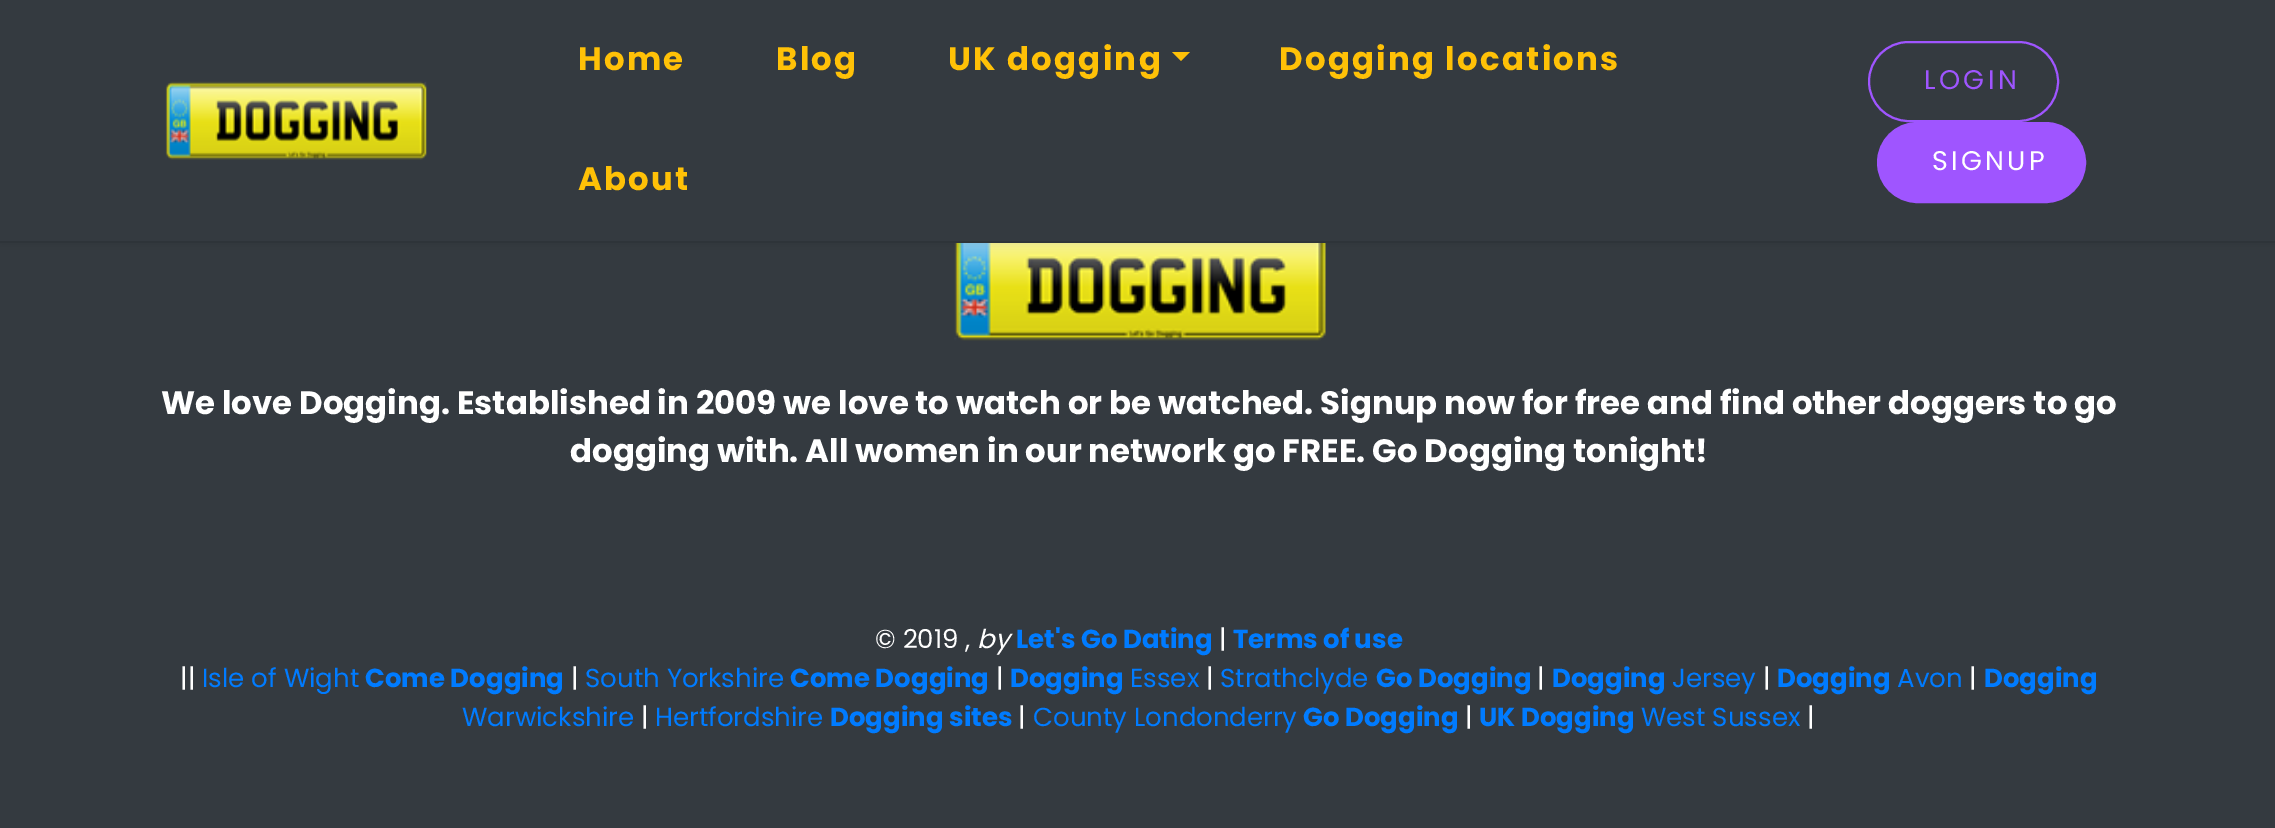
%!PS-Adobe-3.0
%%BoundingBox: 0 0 2275 828
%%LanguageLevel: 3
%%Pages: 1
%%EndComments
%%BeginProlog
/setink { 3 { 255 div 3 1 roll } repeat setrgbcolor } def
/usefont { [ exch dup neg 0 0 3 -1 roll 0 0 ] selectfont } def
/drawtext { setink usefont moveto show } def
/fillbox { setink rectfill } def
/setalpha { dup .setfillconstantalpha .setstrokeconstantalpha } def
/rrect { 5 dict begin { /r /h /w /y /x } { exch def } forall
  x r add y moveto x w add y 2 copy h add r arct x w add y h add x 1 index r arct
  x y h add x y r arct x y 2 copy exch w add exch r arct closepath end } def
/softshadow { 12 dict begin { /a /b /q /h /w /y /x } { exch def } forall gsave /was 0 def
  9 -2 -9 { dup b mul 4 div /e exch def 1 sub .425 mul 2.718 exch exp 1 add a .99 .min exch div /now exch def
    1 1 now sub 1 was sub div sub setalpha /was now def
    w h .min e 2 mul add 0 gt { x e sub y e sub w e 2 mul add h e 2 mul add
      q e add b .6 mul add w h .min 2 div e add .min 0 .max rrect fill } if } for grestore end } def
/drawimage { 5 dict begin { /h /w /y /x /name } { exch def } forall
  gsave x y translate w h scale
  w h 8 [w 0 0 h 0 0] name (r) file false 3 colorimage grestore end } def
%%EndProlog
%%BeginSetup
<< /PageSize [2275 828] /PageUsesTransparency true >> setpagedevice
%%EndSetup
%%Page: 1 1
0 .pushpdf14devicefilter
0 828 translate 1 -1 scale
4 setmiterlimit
0 0 2275 828 52 58 64 fillbox
(assets/img2.rgb) 954 243 372 98 drawimage
0 0 0 setink
0 0 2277 243 0 5.5 0.11 softshadow
0 0 2275 241 52 58 64 fillbox
0 241 2275 2 46 52 57 fillbox
(assets/img1.rgb) 165 81 262 79 drawimage
/Poppins-Bold 32.4 usefont
255 193 7 setink
578 70 moveto 2.25 0 (Home) ashow
776 70 moveto 2.25 0 (Blog) ashow
948 70 moveto 2.25 0 (UK dogging) ashow
1172 52 moveto 1190 52 lineto 1181 61 lineto closepath fill
1279 70 moveto 2.25 0 (Dogging locations) ashow
578 190 moveto 2.25 0 (About) ashow
159 85 255 setink
2 setlinewidth
1869 42 189 79 39.5 rrect stroke
/Poppins-Regular 27 usefont
1924 89 moveto 3.25 0 (LOGIN) ashow
1878 123 207 79 39.5 rrect gsave fill grestore
stroke
255 255 255 setink
1932 170 moveto 3.25 0 (SIGNUP) ashow
(We love Dogging. Established in 2009 we love to watch or be watched. Signup now for free and find other doggers to go) 161 414 /Poppins-Bold 32.4 255 255 255 drawtext
(dogging with. All women in our network go FREE. Go Dogging tonight!) 570 462 /Poppins-Bold 32.4 255 255 255 drawtext
(© 2019 ,) 875 648 /Poppins-Regular 26 255 255 255 drawtext
(by) 977 648 /Poppins-Italic 26 255 255 255 drawtext
(Let's Go Dating) 1016 648 /Poppins-Bold 26 0 123 255 drawtext
(|) 1219 648 /Poppins-Regular 26 255 255 255 drawtext
(Terms of use) 1233 648 /Poppins-Bold 26 0 123 255 drawtext
(||) 180 687 /Poppins-Regular 26 255 255 255 drawtext
(Isle of Wight) 202 687 /Poppins-Regular 26 0 123 255 drawtext
(Come Dogging) 365 687 /Poppins-Bold 26 0 123 255 drawtext
(|) 571 687 /Poppins-Regular 26 255 255 255 drawtext
(South Yorkshire) 585 687 /Poppins-Regular 26 0 123 255 drawtext
(Come Dogging) 790 687 /Poppins-Bold 26 0 123 255 drawtext
(|) 996 687 /Poppins-Regular 26 255 255 255 drawtext
(Dogging) 1010 687 /Poppins-Bold 26 0 123 255 drawtext
(Essex) 1130 687 /Poppins-Regular 26 0 123 255 drawtext
(|) 1206 687 /Poppins-Regular 26 255 255 255 drawtext
(Strathclyde) 1220 687 /Poppins-Regular 26 0 123 255 drawtext
(Go Dogging) 1376 687 /Poppins-Bold 26 0 123 255 drawtext
(|) 1537 687 /Poppins-Regular 26 255 255 255 drawtext
(Dogging) 1552 687 /Poppins-Bold 26 0 123 255 drawtext
(Jersey) 1672 687 /Poppins-Regular 26 0 123 255 drawtext
(|) 1763 687 /Poppins-Regular 26 255 255 255 drawtext
(Dogging) 1777 687 /Poppins-Bold 26 0 123 255 drawtext
(Avon) 1897 687 /Poppins-Regular 26 0 123 255 drawtext
(|) 1969 687 /Poppins-Regular 26 255 255 255 drawtext
(Dogging) 1984 687 /Poppins-Bold 26 0 123 255 drawtext
(Warwickshire) 462 726 /Poppins-Regular 26 0 123 255 drawtext
(|) 641 726 /Poppins-Regular 26 255 255 255 drawtext
(Hertfordshire) 655 726 /Poppins-Regular 26 0 123 255 drawtext
(Dogging sites) 830 726 /Poppins-Bold 26 0 123 255 drawtext
(|) 1018 726 /Poppins-Regular 26 255 255 255 drawtext
(County Londonderry) 1033 726 /Poppins-Regular 26 0 123 255 drawtext
(Go Dogging) 1303 726 /Poppins-Bold 26 0 123 255 drawtext
(|) 1465 726 /Poppins-Regular 26 255 255 255 drawtext
(UK Dogging) 1479 726 /Poppins-Bold 26 0 123 255 drawtext
(West Sussex) 1641 726 /Poppins-Regular 26 0 123 255 drawtext
(|) 1807 726 /Poppins-Regular 26 255 255 255 drawtext
.poppdf14devicefilter showpage
%%EOF
